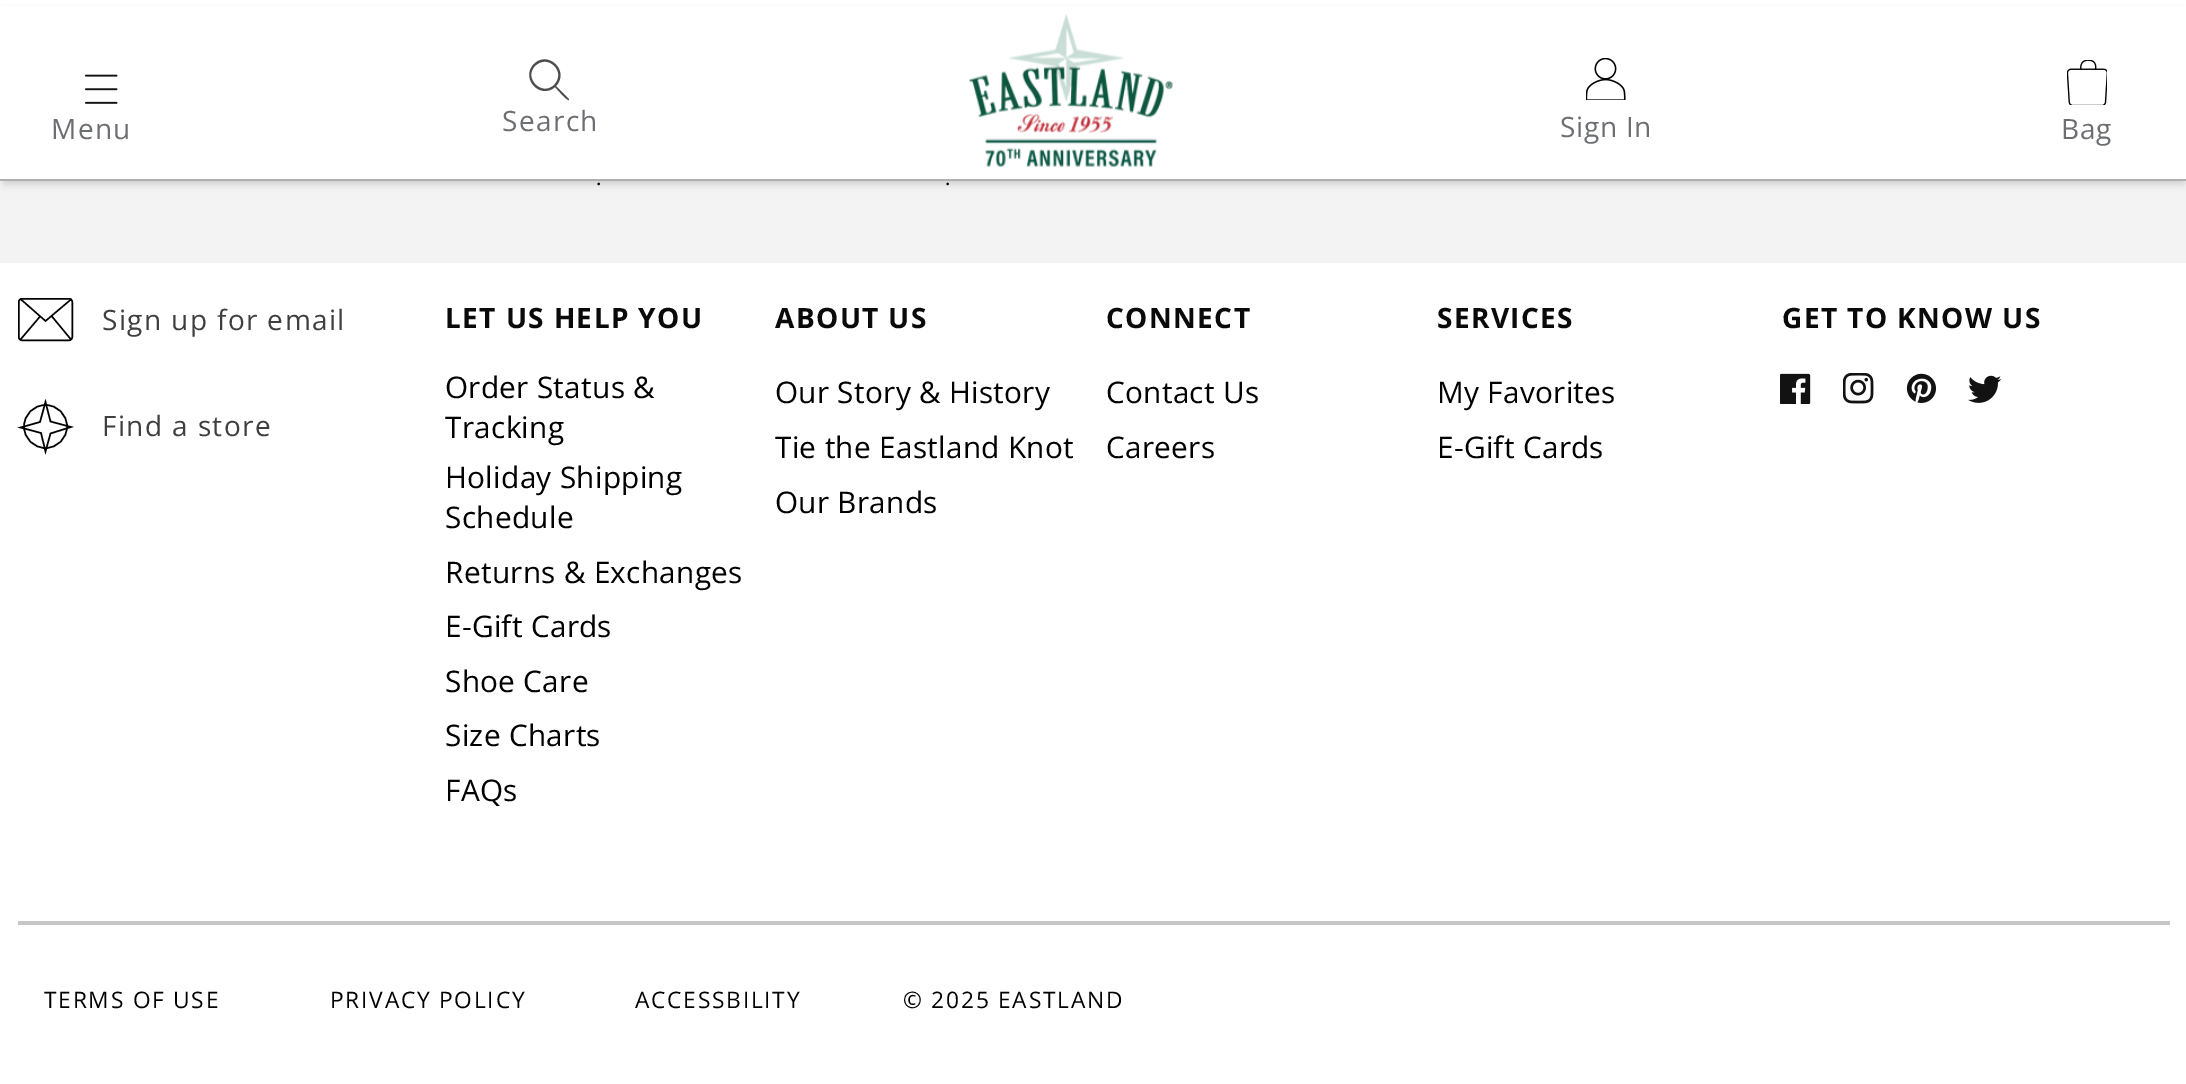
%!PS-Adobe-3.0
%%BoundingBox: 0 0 2186 1084
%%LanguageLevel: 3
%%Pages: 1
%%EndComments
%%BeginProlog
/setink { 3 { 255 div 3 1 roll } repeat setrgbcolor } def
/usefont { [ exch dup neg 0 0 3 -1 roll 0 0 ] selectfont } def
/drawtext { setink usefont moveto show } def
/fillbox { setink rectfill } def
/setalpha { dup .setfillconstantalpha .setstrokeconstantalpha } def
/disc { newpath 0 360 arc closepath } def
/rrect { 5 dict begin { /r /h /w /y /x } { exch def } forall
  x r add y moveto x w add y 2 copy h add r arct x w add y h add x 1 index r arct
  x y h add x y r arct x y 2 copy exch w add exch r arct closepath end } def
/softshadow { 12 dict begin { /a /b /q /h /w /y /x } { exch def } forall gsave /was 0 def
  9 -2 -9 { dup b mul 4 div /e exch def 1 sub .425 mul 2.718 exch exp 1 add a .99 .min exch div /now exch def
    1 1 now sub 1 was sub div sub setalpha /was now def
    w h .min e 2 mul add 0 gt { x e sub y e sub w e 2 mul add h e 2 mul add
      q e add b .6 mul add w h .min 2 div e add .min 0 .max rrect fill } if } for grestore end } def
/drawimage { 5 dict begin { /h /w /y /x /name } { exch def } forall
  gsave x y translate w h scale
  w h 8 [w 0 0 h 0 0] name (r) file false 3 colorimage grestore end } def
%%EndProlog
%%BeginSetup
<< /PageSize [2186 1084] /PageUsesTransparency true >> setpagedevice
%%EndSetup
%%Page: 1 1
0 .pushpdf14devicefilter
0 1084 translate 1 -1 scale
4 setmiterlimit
0 0 2186 1084 255 255 255 fillbox
0 181 2186 82 243 243 243 fillbox
0 0 0 setink
4 11 2180 173 0 3.5 0.15 softshadow
0 6 2186 173 255 255 255 fillbox
0 179 2186 2 176 176 176 fillbox
(assets/img1.rgb) 85 74 33 30 drawimage
/OpenSans-Regular 28 usefont
109 110 113 setink
51 139 moveto 1.4 0 (Menu) ashow
77 77 77 setink
554 85 moveto 542 97 523 78 535 66 curveto 548 53 567 72 554 85 curveto closepath 555 87 moveto 540 100 520 78 534 64 curveto 548 50 570 71 556 86 curveto 569 99 lineto 569 100 lineto 567 101 557 89 555 87 curveto closepath eofill
109 110 113 setink
502 131 moveto 1.4 0 (Search) ashow
(assets/img2.rgb) 969 14 204 153 drawimage
(assets/img3.rgb) 1586 58 40 42 drawimage
1560 137 moveto 0.75 0 (Sign In) ashow
(assets/img4.rgb) 2067 60 40 45 drawimage
2061 139 moveto 0.75 0 (Bag) ashow
(.) 596 185 /OpenSans-Regular 21 0 0 0 drawtext
(.) 945 185 /OpenSans-Regular 21 0 0 0 drawtext
1 1 1 setink
1.5 setlinewidth
18.75 298.75 53.5 41.5 3.25 rrect stroke
1.4 setlinewidth
20.5 299 moveto 45.5 321 lineto 71.5 299 lineto 20.5 339.5 moveto 40 316.5 lineto 71 339.5 moveto 52 316.5 lineto stroke
/OpenSans-Regular 28 usefont
63 63 63 setink
102 330 moveto 1.4 0 (Sign up for email) ashow
1 1 1 setink
1.5 setlinewidth
45.5 426.5 21.5 disc stroke
45.5 451.5 moveto 41 433 lineto 20.5 427.5 lineto 40 422 lineto 45.5 402 lineto 50.5 421.5 lineto 71 427 lineto 50.5 433.5 lineto closepath stroke
63 63 63 setink
102 436 moveto 1.4 0 (Find a store) ashow
/OpenSans-Bold 28 usefont
10 10 10 setink
445 328 moveto 1.4 0 (LET US HELP YOU) ashow
/OpenSans-Regular 29.75 usefont
0 0 0 setink
445 398 moveto 0.3 0 (Order Status &) ashow
445 438 moveto 0.3 0 (Tracking) ashow
445 488 moveto 0.3 0 (Holiday Shipping) ashow
445 528 moveto 0.3 0 (Schedule) ashow
445 583 moveto 0.3 0 (Returns & Exchanges) ashow
445 637 moveto 0.3 0 (E-Gift Cards) ashow
445 692 moveto 0.3 0 (Shoe Care) ashow
445 746 moveto 0.3 0 (Size Charts) ashow
445 801 moveto 0.3 0 (FAQs) ashow
/OpenSans-Bold 28 usefont
10 10 10 setink
775 328 moveto 1.4 0 (ABOUT US) ashow
/OpenSans-Regular 29.75 usefont
0 0 0 setink
775 403 moveto 0.3 0 (Our Story & History) ashow
775 458 moveto 0.3 0 (Tie the Eastland Knot) ashow
775 513 moveto 0.3 0 (Our Brands) ashow
/OpenSans-Bold 28 usefont
10 10 10 setink
1106 328 moveto 1.4 0 (CONNECT) ashow
/OpenSans-Regular 29.75 usefont
0 0 0 setink
1106 403 moveto 0.3 0 (Contact Us) ashow
1106 458 moveto 0.3 0 (Careers) ashow
/OpenSans-Bold 28 usefont
10 10 10 setink
1437 328 moveto 1.4 0 (SERVICES) ashow
/OpenSans-Regular 29.75 usefont
0 0 0 setink
1437 403 moveto 0.3 0 (My Favorites) ashow
1437 458 moveto 0.3 0 (E-Gift Cards) ashow
/OpenSans-Bold 28 usefont
10 10 10 setink
1782 328 moveto 1.4 0 (GET TO KNOW US) ashow
(assets/img5.rgb) 1780 373 31 31 drawimage
(assets/img6.rgb) 1843 373 31 31 drawimage
(assets/img7.rgb) 1906 373 30 30 drawimage
(assets/img8.rgb) 1968 375 34 28 drawimage
18 921 2152 4 198 198 198 fillbox
/OpenSans-Regular 22.75 usefont
0 0 0 setink
44 1008 moveto 1.75 0 (TERMS OF USE) ashow
330 1008 moveto 1.75 0 (PRIVACY POLICY) ashow
635 1008 moveto 1.75 0 (ACCESSBILITY) ashow
903 1008 moveto 1.75 0 (© 2025 EASTLAND) ashow
.poppdf14devicefilter showpage
%%EOF
